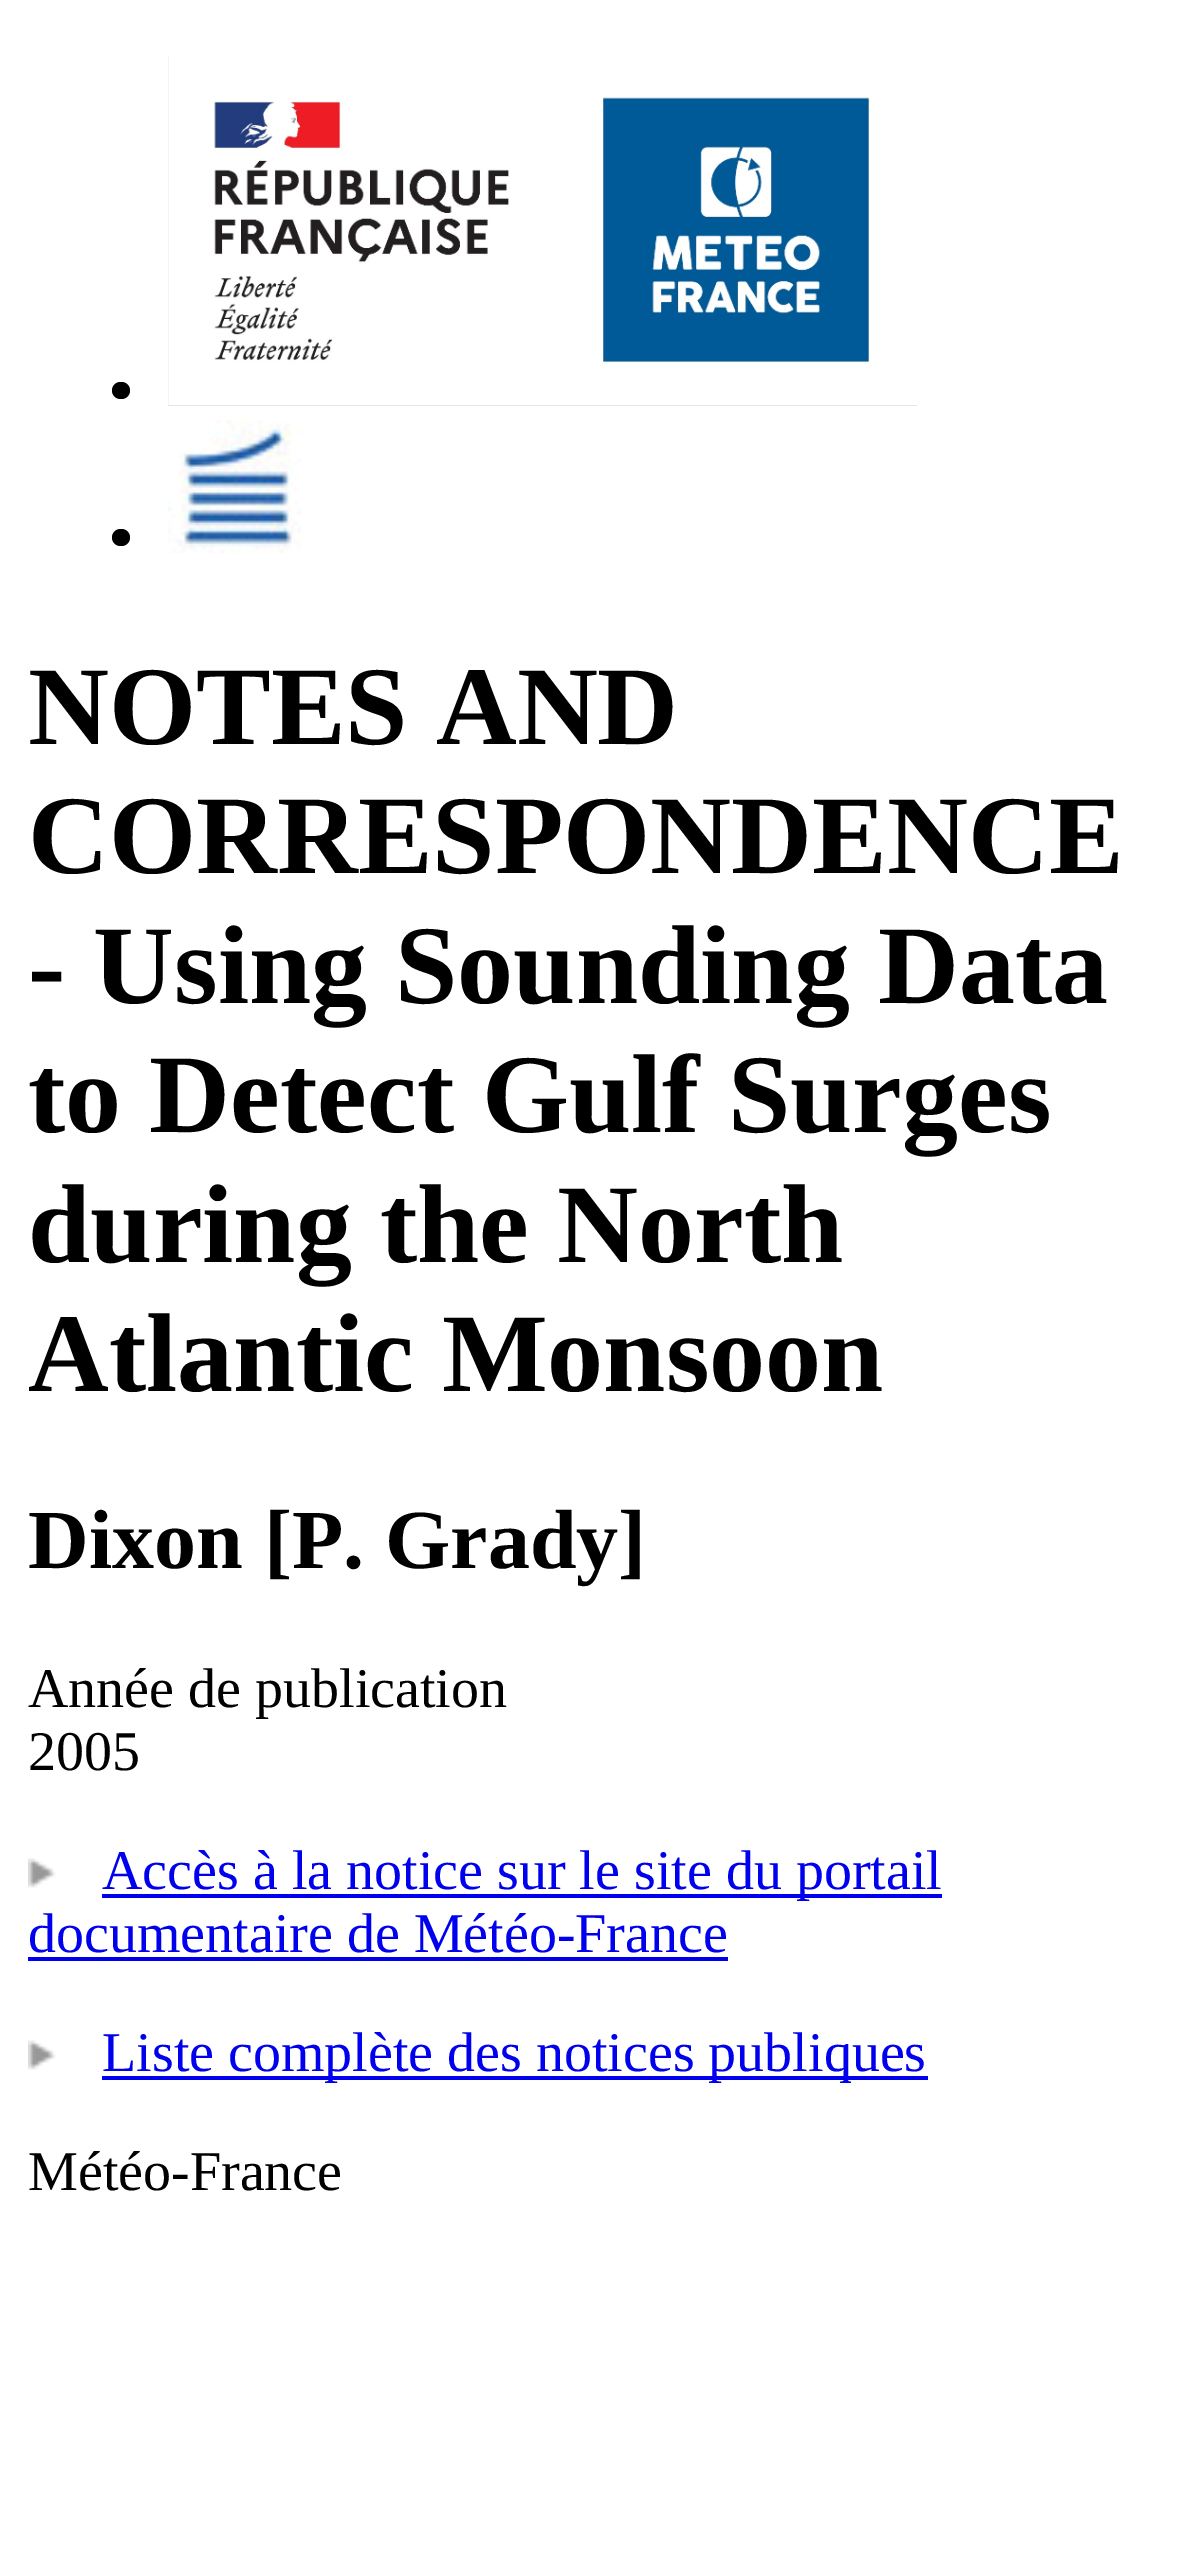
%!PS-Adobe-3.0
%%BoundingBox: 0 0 1193 2561
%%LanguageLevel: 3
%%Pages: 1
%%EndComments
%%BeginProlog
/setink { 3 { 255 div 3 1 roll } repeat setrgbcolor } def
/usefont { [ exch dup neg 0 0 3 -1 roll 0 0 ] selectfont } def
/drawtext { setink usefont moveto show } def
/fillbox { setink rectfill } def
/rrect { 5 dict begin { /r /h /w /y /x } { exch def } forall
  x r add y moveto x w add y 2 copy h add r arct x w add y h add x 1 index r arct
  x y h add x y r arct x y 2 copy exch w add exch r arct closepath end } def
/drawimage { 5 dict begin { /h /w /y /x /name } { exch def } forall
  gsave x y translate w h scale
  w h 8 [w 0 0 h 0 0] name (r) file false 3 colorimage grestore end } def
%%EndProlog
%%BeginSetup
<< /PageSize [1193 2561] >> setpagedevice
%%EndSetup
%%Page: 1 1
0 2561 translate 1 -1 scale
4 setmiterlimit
0 0 1193 2561 255 255 255 fillbox
0 0 0 setink
112 382 18 17 8.5 rrect fill
(assets/img1.rgb) 168 56 749 350 drawimage
112 529 18 17 8.5 rrect fill
(assets/img2.rgb) 168 420 133 133 drawimage
(NOTES AND) 28 744 /LiberationSerif-Bold 112 0 0 0 drawtext
(CORRESPONDENCE) 28 873 /LiberationSerif-Bold 112 0 0 0 drawtext
(- Using Sounding Data) 28 1003 /LiberationSerif-Bold 112 0 0 0 drawtext
(to Detect Gulf Surges) 28 1132 /LiberationSerif-Bold 112 0 0 0 drawtext
(during the North) 28 1262 /LiberationSerif-Bold 112 0 0 0 drawtext
(Atlantic Monsoon) 28 1391 /LiberationSerif-Bold 112 0 0 0 drawtext
(Dixon [P. Grady]) 28 1568 /LiberationSerif-Bold 84 0 0 0 drawtext
(Année de publication) 28 1707 /LiberationSerif-Regular 56 0 0 0 drawtext
(2005) 28 1770 /LiberationSerif-Regular 56 0 0 0 drawtext
(assets/img3.rgb) 28 1858 28 30 drawimage
102 1894 840 4 0 0 238 fillbox
(Accès à la notice sur le site du portail) 102 1889 /LiberationSerif-Regular 56 0 0 238 drawtext
(documentaire de Météo-France) 28 1952 /LiberationSerif-Regular 56 0 0 238 drawtext
28 1957 700 4 0 0 238 fillbox
(assets/img3.rgb) 28 2040 28 30 drawimage
102 2076 826 4 0 0 238 fillbox
(Liste complète des notices publiques) 102 2071 /LiberationSerif-Regular 56 0 0 238 drawtext
(Météo-France) 28 2190 /LiberationSerif-Regular 56 0 0 0 drawtext
showpage
%%EOF
